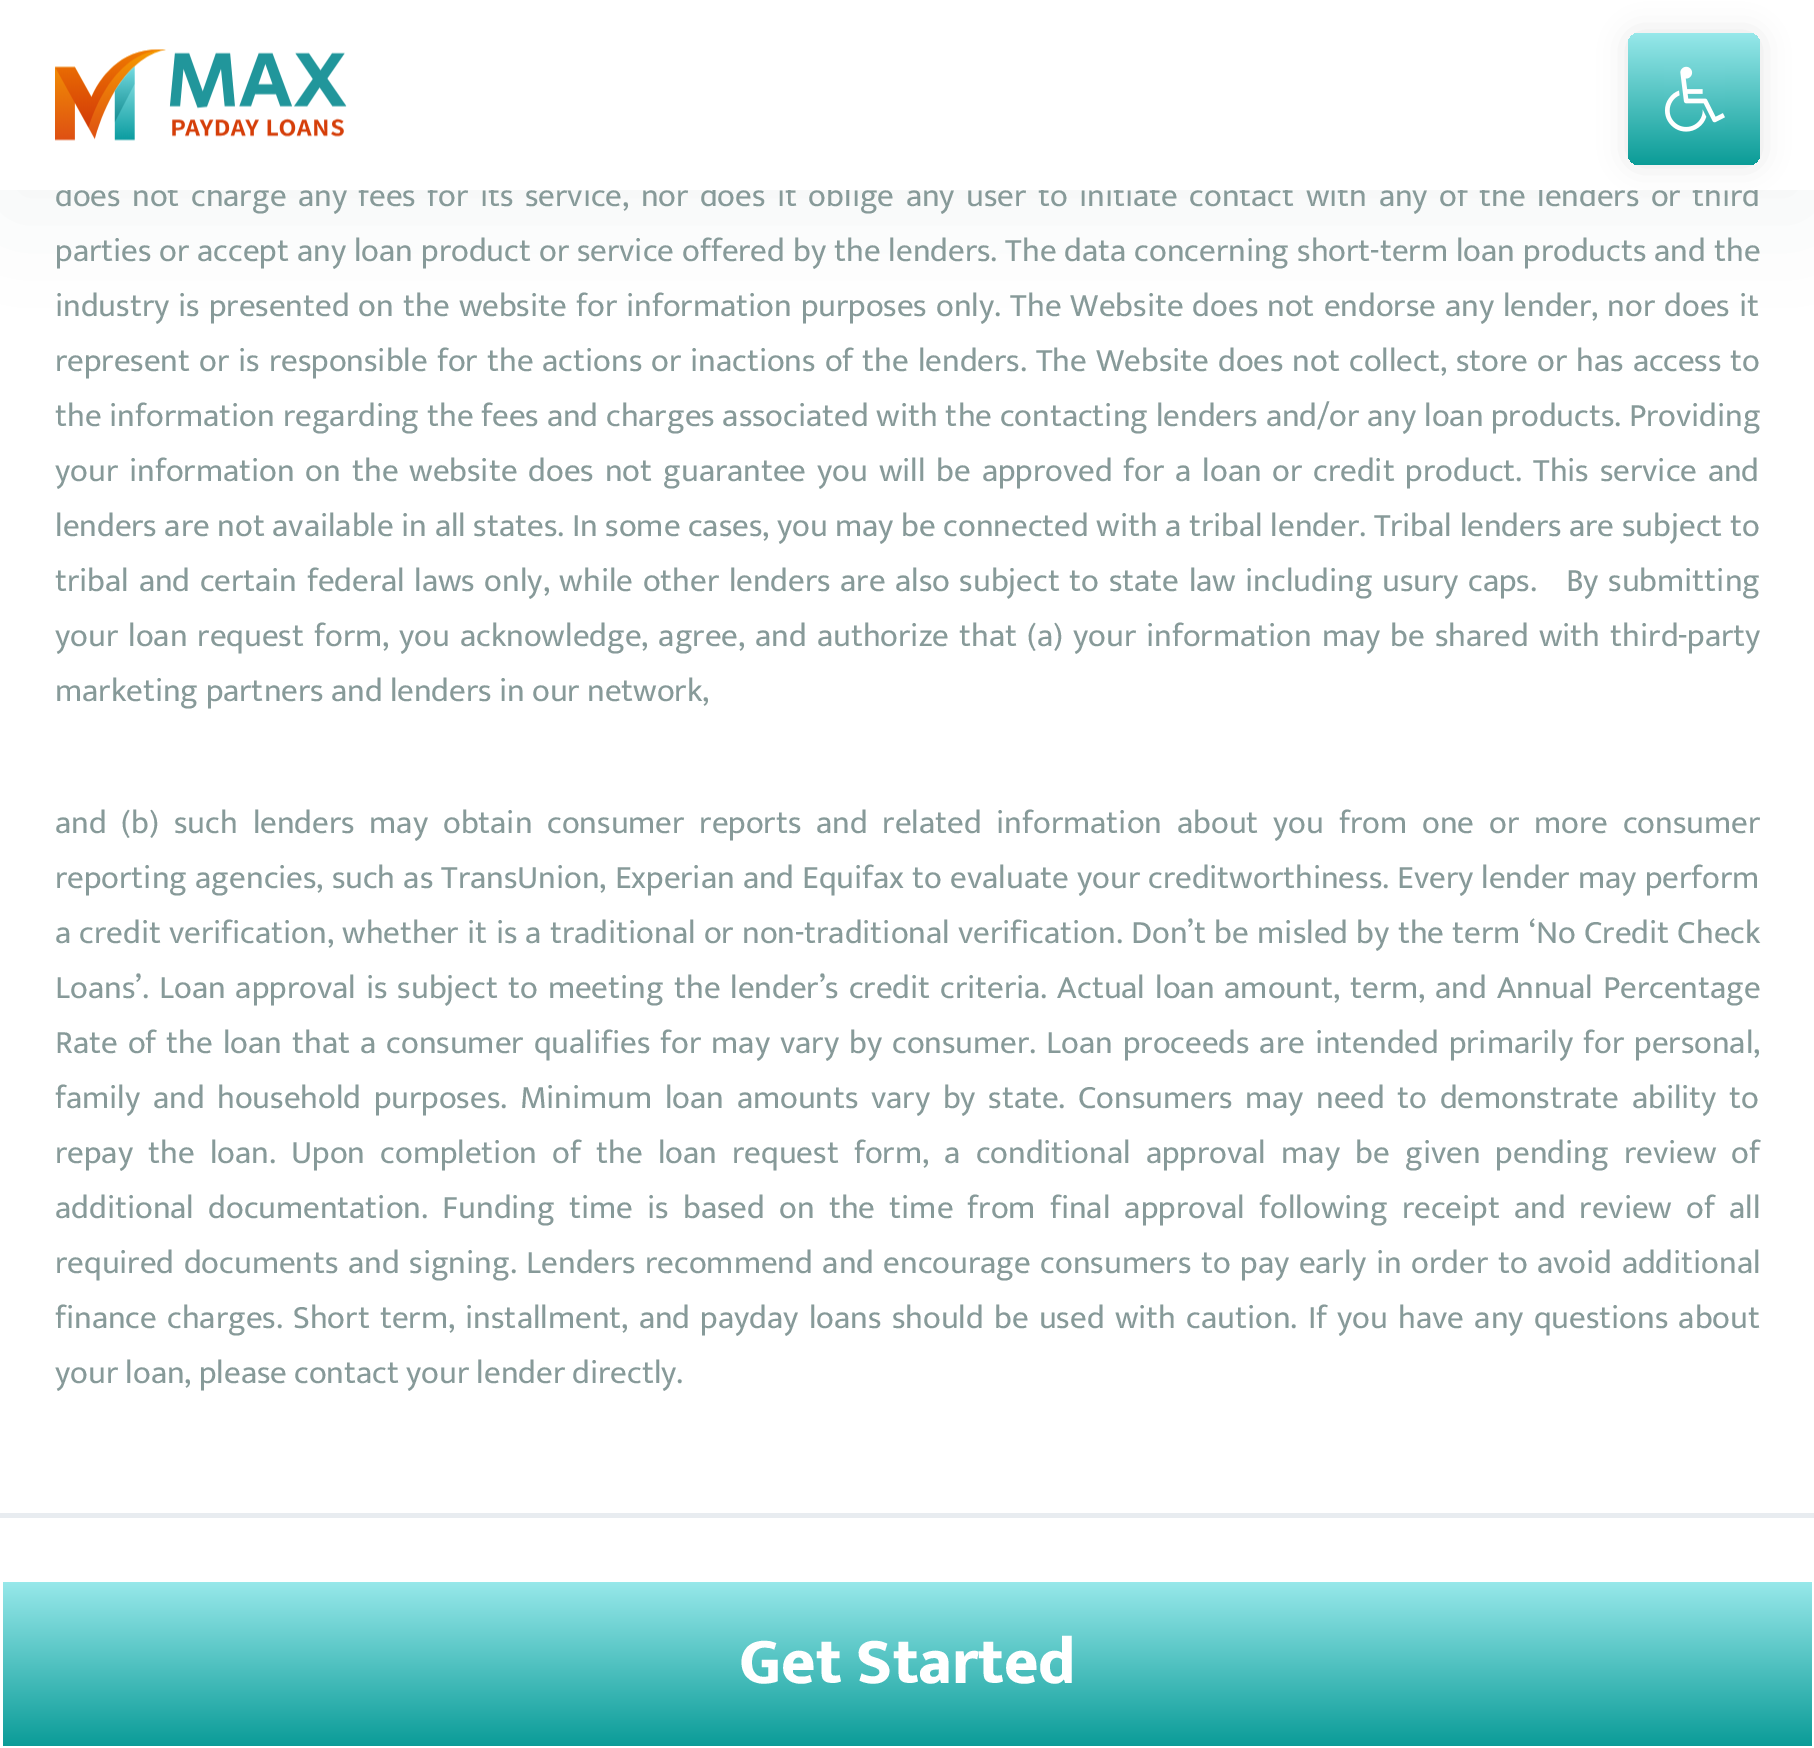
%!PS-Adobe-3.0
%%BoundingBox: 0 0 1814 1748
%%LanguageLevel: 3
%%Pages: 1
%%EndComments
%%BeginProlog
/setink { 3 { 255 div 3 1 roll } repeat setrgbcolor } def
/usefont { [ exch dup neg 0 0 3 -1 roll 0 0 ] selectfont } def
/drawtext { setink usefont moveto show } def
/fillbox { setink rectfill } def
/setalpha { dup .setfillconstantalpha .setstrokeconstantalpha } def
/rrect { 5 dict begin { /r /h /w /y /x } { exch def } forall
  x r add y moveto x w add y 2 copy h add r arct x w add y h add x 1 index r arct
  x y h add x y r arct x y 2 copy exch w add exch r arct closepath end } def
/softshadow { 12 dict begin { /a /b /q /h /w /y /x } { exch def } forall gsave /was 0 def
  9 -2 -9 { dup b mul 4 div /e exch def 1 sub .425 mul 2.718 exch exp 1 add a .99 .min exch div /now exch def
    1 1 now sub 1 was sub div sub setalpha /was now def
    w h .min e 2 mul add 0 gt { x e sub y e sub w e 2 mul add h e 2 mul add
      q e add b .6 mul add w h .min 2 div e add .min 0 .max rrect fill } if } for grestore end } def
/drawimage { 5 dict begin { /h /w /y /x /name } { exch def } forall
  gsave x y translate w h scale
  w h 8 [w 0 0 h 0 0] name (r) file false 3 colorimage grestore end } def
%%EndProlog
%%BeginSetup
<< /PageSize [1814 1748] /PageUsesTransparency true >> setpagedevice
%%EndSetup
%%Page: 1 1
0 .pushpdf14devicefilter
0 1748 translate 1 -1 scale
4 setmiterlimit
0 0 1814 1748 255 255 255 fillbox
48 70 102 setink
0 22 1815 190 0 55 0.06 softshadow
/Mukta-Regular 33 usefont
135 154 153 setink
55 206 moveto 4.2 0 32 (does not charge any fees for its service, nor does it oblige any user to initiate contact with any of the lenders or third) widthshow
0 0 1814 190 255 255 255 fillbox
(assets/img1.rgb) 55 49 292 92 drawimage
0 0 0 setink
1628 33 132 132 11 14 0.1 softshadow
gsave 1628 33 132 132 11 rrect clip newpath
<< /ShadingType 2 /ColorSpace /DeviceRGB /Coords [1694 175 1694 -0.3] /Extend [true true] /Function << /FunctionType 2 /Domain [0 1] /C0 [0 0.588 0.569] /C1 [0.733 0.984 1] /N 1 >> >> shfill grestore
(assets/img2.rgb) 1664 66 61 66 drawimage
135 154 153 setink
55 261 moveto 0.75 0 32 (parties or accept any loan product or service offered by the lenders. The data concerning short-term loan products and the) widthshow
55 316 moveto 1.8 0 32 (industry is presented on the website for information purposes only. The Website does not endorse any lender, nor does it) widthshow
55 371 moveto 1.75 0 32 (represent or is responsible for the actions or inactions of the lenders. The Website does not collect, store or has access to) widthshow
55 426 moveto 0.5 0 32 (the information regarding the fees and charges associated with the contacting lenders and/or any loan products. Providing) widthshow
55 481 moveto 3.6 0 32 (your information on the website does not guarantee you will be approved for a loan or credit product. This service and) widthshow
55 536 moveto 0.3 0 32 (lenders are not available in all states. In some cases, you may be connected with a tribal lender. Tribal lenders are subject to) widthshow
55 591 moveto 2.3 0 32 (tribal and certain federal laws only, while other lenders are also subject to state law including usury caps.   By submitting) widthshow
55 646 moveto 2.75 0 32 (your loan request form, you acknowledge, agree, and authorize that \(a\) your information may be shared with third-party) widthshow
(marketing partners and lenders in our network,) 55 701 /Mukta-Regular 33 135 154 153 drawtext
55 833 moveto 7.6 0 32 (and \(b\) such lenders may obtain consumer reports and related information about you from one or more consumer) widthshow
55 888 moveto 0.9 0 32 (reporting agencies, such as TransUnion, Experian and Equifax to evaluate your creditworthiness. Every lender may perform) widthshow
55 943 moveto 1 0 32 (a credit verification, whether it is a traditional or non-traditional verification. Don’t be misled by the term ‘No Credit Check) widthshow
55 998 moveto 2.75 0 32 (Loans’. Loan approval is subject to meeting the lender’s credit criteria. Actual loan amount, term, and Annual Percentage) widthshow
55 1053 moveto 2.75 0 32 (Rate of the loan that a consumer qualifies for may vary by consumer. Loan proceeds are intended primarily for personal,) widthshow
55 1108 moveto 5.25 0 32 (family and household purposes. Minimum loan amounts vary by state. Consumers may need to demonstrate ability to) widthshow
55 1163 moveto 7.9 0 32 (repay the loan. Upon completion of the loan request form, a conditional approval may be given pending review of) widthshow
55 1218 moveto 6.9 0 32 (additional documentation. Funding time is based on the time from final approval following receipt and review of all) widthshow
55 1273 moveto 2.3 0 32 (required documents and signing. Lenders recommend and encourage consumers to pay early in order to avoid additional) widthshow
55 1328 moveto 3 0 32 (finance charges. Short term, installment, and payday loans should be used with caution. If you have any questions about) widthshow
(your loan, please contact your lender directly.) 55 1383 /Mukta-Regular 33 135 154 153 drawtext
0 1513 1814 5 232 236 240 fillbox
gsave 3 1582 moveto 1812 1582 lineto 1812 1746 lineto 3 1746 lineto closepath clip newpath
<< /ShadingType 2 /ColorSpace /DeviceRGB /Coords [908 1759 908 1540] /Extend [true true] /Function << /FunctionType 2 /Domain [0 1] /C0 [0 0.588 0.569] /C1 [0.733 0.984 1] /N 1 >> >> shfill grestore
(Get Started) 739 1683 /Mukta-ExtraBold 66 255 255 255 drawtext
.poppdf14devicefilter showpage
%%EOF
